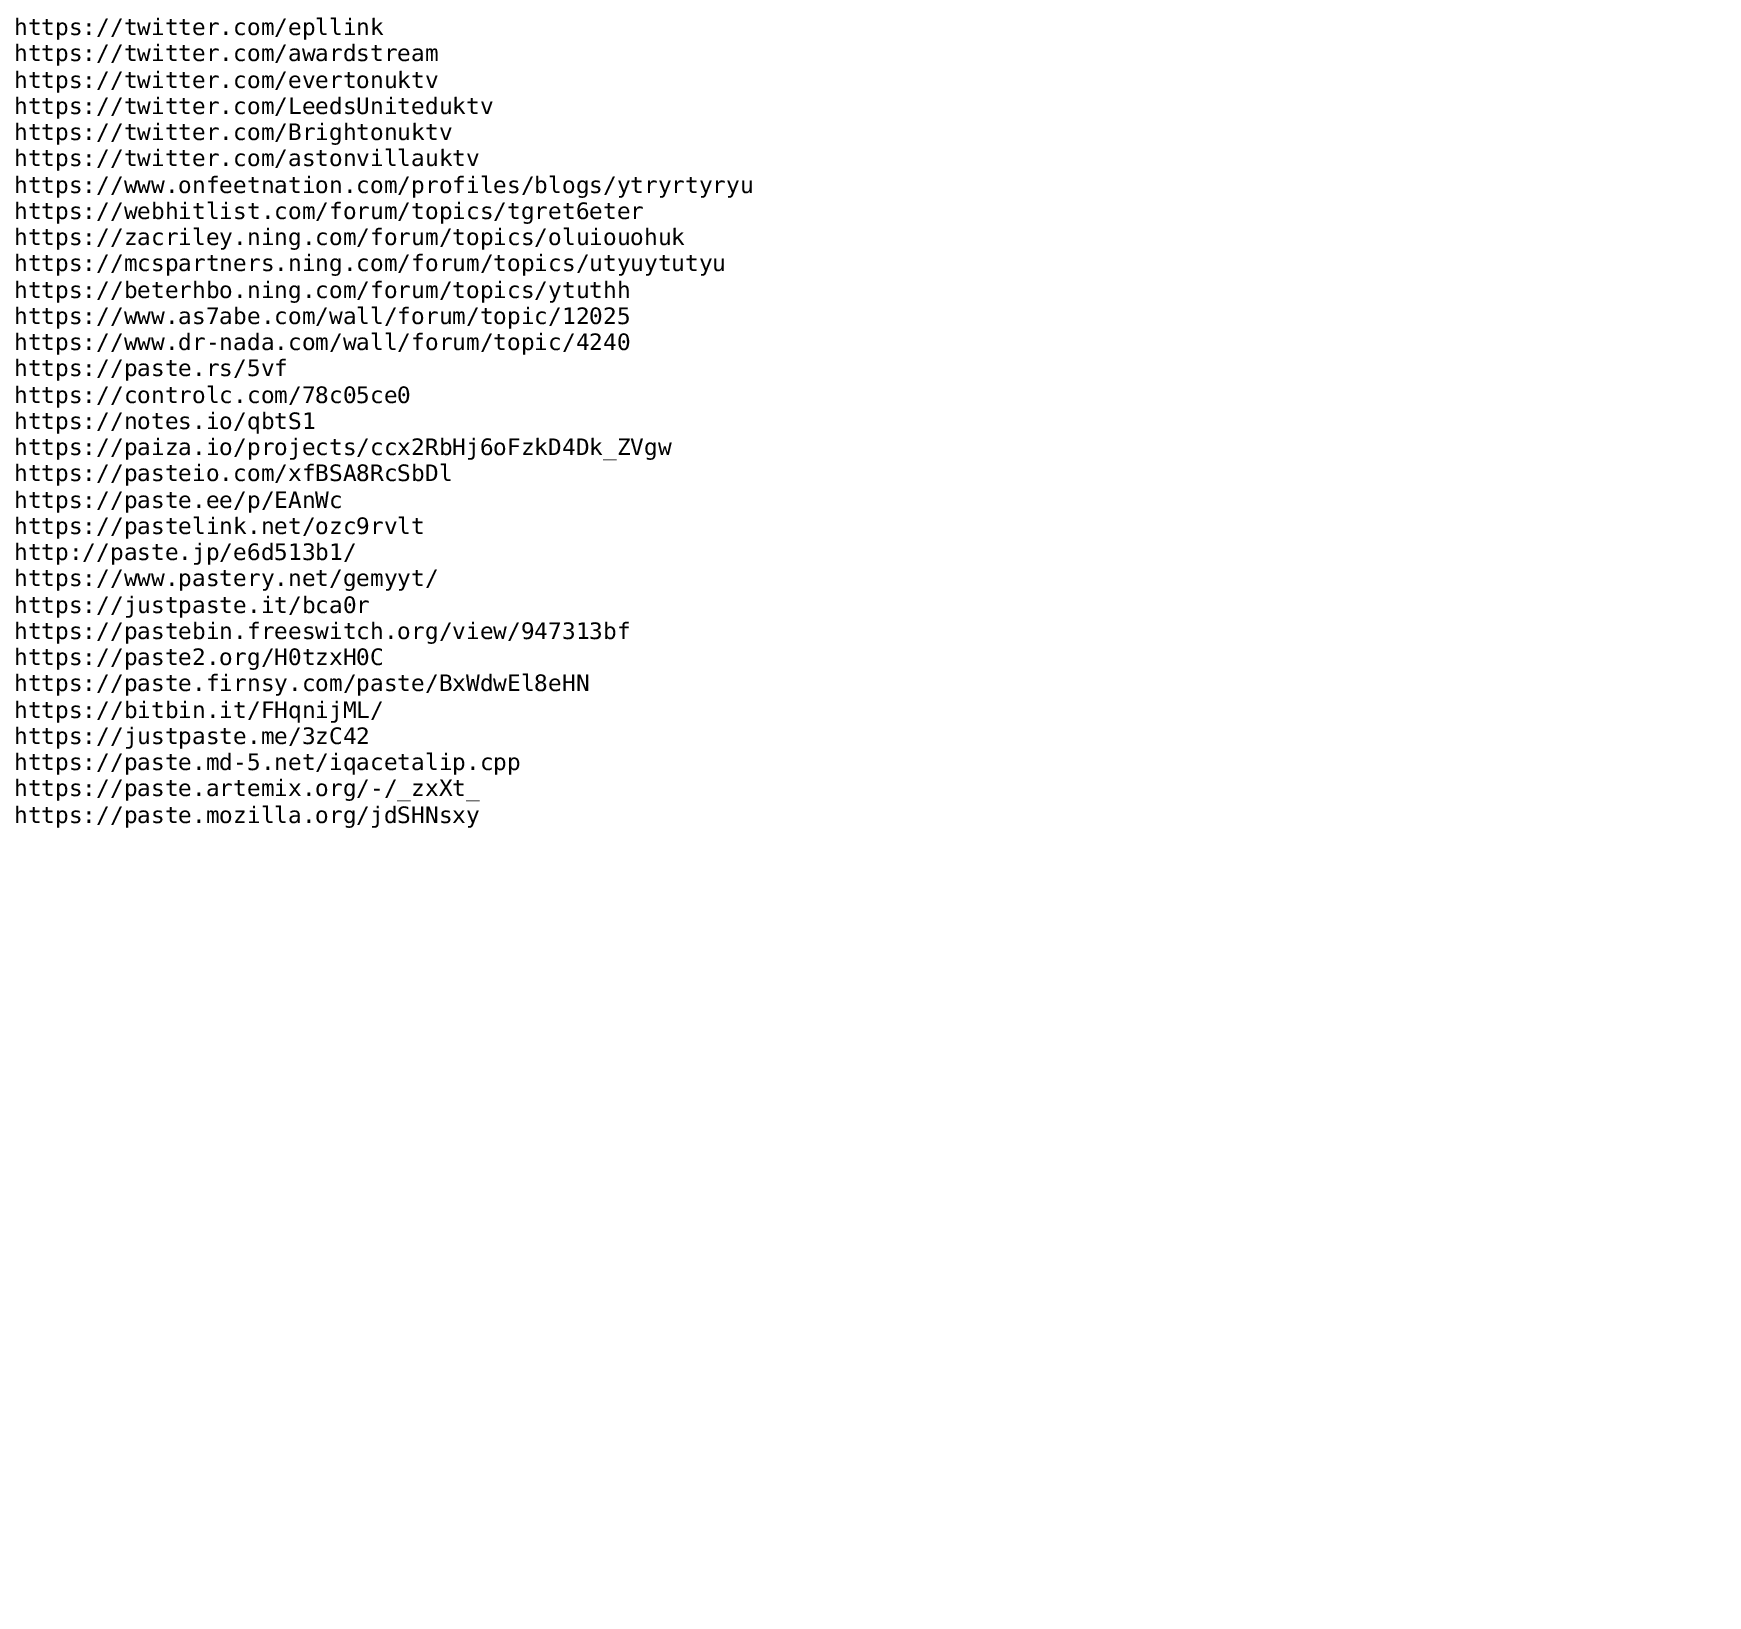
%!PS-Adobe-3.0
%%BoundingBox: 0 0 1741 1629
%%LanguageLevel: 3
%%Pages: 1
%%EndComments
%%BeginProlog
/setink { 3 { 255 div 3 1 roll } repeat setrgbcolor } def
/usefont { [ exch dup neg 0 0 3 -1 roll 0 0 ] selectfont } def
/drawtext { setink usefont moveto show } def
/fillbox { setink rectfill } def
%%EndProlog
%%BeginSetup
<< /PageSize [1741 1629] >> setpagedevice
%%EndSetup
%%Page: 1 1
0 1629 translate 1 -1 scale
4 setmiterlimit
0 0 1741 1629 255 255 255 fillbox
(https://twitter.com/epllink) 14 35 /DejaVuSansMono-Regular 22.75 0 0 0 drawtext
(https://twitter.com/awardstream) 14 61 /DejaVuSansMono-Regular 22.75 0 0 0 drawtext
(https://twitter.com/evertonuktv) 14 88 /DejaVuSansMono-Regular 22.75 0 0 0 drawtext
(https://twitter.com/LeedsUniteduktv) 14 114 /DejaVuSansMono-Regular 22.75 0 0 0 drawtext
(https://twitter.com/Brightonuktv) 14 140 /DejaVuSansMono-Regular 22.75 0 0 0 drawtext
(https://twitter.com/astonvillauktv) 14 166 /DejaVuSansMono-Regular 22.75 0 0 0 drawtext
(https://www.onfeetnation.com/profiles/blogs/ytryrtyryu) 14 193 /DejaVuSansMono-Regular 22.75 0 0 0 drawtext
(https://webhitlist.com/forum/topics/tgret6eter) 14 219 /DejaVuSansMono-Regular 22.75 0 0 0 drawtext
(https://zacriley.ning.com/forum/topics/oluiouohuk) 14 245 /DejaVuSansMono-Regular 22.75 0 0 0 drawtext
(https://mcspartners.ning.com/forum/topics/utyuytutyu) 14 271 /DejaVuSansMono-Regular 22.75 0 0 0 drawtext
(https://beterhbo.ning.com/forum/topics/ytuthh) 14 298 /DejaVuSansMono-Regular 22.75 0 0 0 drawtext
(https://www.as7abe.com/wall/forum/topic/12025) 14 324 /DejaVuSansMono-Regular 22.75 0 0 0 drawtext
(https://www.dr-nada.com/wall/forum/topic/4240) 14 350 /DejaVuSansMono-Regular 22.75 0 0 0 drawtext
(https://paste.rs/5vf) 14 376 /DejaVuSansMono-Regular 22.75 0 0 0 drawtext
(https://controlc.com/78c05ce0) 14 403 /DejaVuSansMono-Regular 22.75 0 0 0 drawtext
(https://notes.io/qbtS1) 14 429 /DejaVuSansMono-Regular 22.75 0 0 0 drawtext
(https://paiza.io/projects/ccx2RbHj6oFzkD4Dk_ZVgw) 14 455 /DejaVuSansMono-Regular 22.75 0 0 0 drawtext
(https://pasteio.com/xfBSA8RcSbDl) 14 481 /DejaVuSansMono-Regular 22.75 0 0 0 drawtext
(https://paste.ee/p/EAnWc) 14 508 /DejaVuSansMono-Regular 22.75 0 0 0 drawtext
(https://pastelink.net/ozc9rvlt) 14 534 /DejaVuSansMono-Regular 22.75 0 0 0 drawtext
(http://paste.jp/e6d513b1/) 14 560 /DejaVuSansMono-Regular 22.75 0 0 0 drawtext
(https://www.pastery.net/gemyyt/) 14 586 /DejaVuSansMono-Regular 22.75 0 0 0 drawtext
(https://justpaste.it/bca0r) 14 613 /DejaVuSansMono-Regular 22.75 0 0 0 drawtext
(https://pastebin.freeswitch.org/view/947313bf) 14 639 /DejaVuSansMono-Regular 22.75 0 0 0 drawtext
(https://paste2.org/H0tzxH0C) 14 665 /DejaVuSansMono-Regular 22.75 0 0 0 drawtext
(https://paste.firnsy.com/paste/BxWdwEl8eHN) 14 691 /DejaVuSansMono-Regular 22.75 0 0 0 drawtext
(https://bitbin.it/FHqnijML/) 14 718 /DejaVuSansMono-Regular 22.75 0 0 0 drawtext
(https://justpaste.me/3zC42) 14 744 /DejaVuSansMono-Regular 22.75 0 0 0 drawtext
(https://paste.md-5.net/iqacetalip.cpp) 14 770 /DejaVuSansMono-Regular 22.75 0 0 0 drawtext
(https://paste.artemix.org/-/_zxXt_) 14 796 /DejaVuSansMono-Regular 22.75 0 0 0 drawtext
(https://paste.mozilla.org/jdSHNsxy) 14 823 /DejaVuSansMono-Regular 22.75 0 0 0 drawtext
showpage
%%EOF
